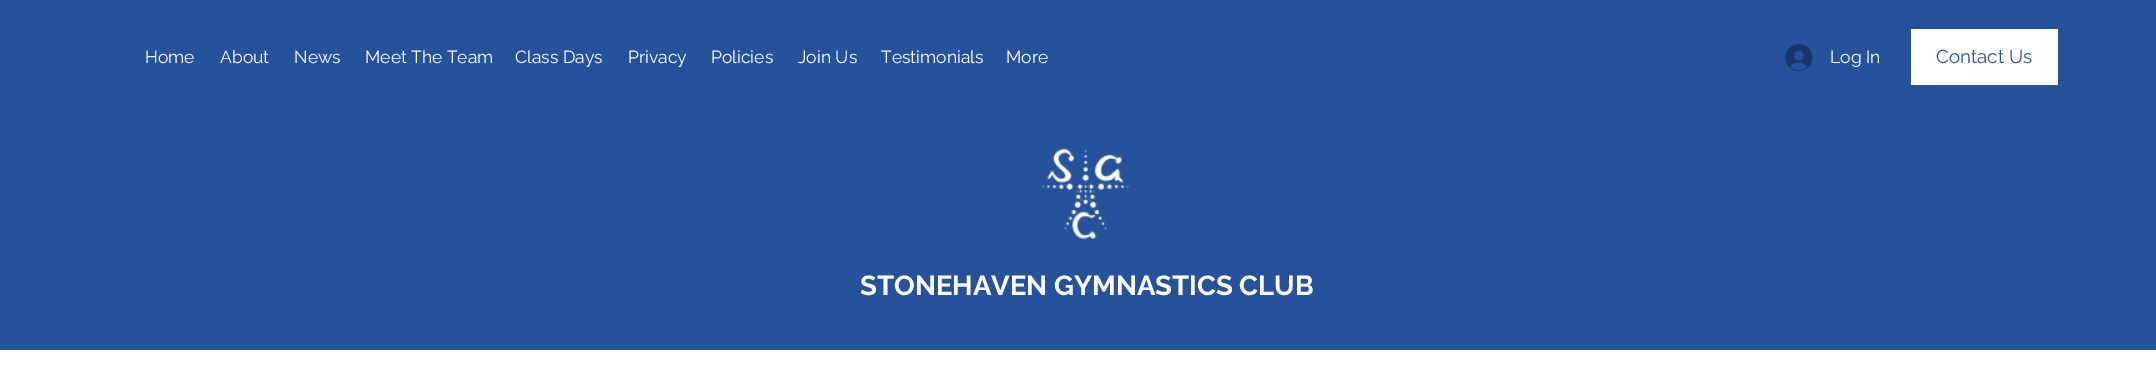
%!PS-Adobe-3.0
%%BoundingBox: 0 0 2156 381
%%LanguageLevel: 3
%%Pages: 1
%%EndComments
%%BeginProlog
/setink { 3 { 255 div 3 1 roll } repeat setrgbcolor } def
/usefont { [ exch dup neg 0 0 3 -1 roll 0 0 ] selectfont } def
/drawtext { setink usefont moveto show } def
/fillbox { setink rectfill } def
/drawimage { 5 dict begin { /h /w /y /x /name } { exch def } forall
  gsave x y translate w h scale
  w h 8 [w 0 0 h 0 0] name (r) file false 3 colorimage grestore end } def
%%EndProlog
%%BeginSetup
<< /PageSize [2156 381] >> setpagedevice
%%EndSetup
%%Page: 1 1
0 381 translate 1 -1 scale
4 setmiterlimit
0 0 2156 381 255 255 255 fillbox
0 0 2156 350 38 82 156 fillbox
(Home) 145 63 /Raleway-Regular 17.5 255 255 255 drawtext
(About) 220 63 /Raleway-Regular 17.5 255 255 255 drawtext
(News) 294 63 /Raleway-Regular 17.5 255 255 255 drawtext
(Meet The Team) 365 63 /Raleway-Regular 17.5 255 255 255 drawtext
(Class Days) 515 63 /Raleway-Regular 17.5 255 255 255 drawtext
(Privacy) 628 63 /Raleway-Regular 17.5 255 255 255 drawtext
(Policies) 711 63 /Raleway-Regular 17.5 255 255 255 drawtext
(Join Us) 798 63 /Raleway-Regular 17.5 255 255 255 drawtext
(Testimonials) 881 63 /Raleway-Regular 17.5 255 255 255 drawtext
(More) 1006 63 /Raleway-Regular 17.5 255 255 255 drawtext
(assets/img1.rgb) 1785 44 28 27 drawimage
(Log In) 1830 63 /Raleway-Regular 17.5 255 255 255 drawtext
1911 29 147 56 255 255 255 fillbox
(Contact Us) 1936 63 /Raleway-Regular 18.75 38 82 156 drawtext
(assets/img2.rgb) 1042 148 87 91 drawimage
(STONEHAVEN GYMNASTICS CLUB) 860 295 /Raleway-Bold 27.5 255 255 255 drawtext
showpage
%%EOF
